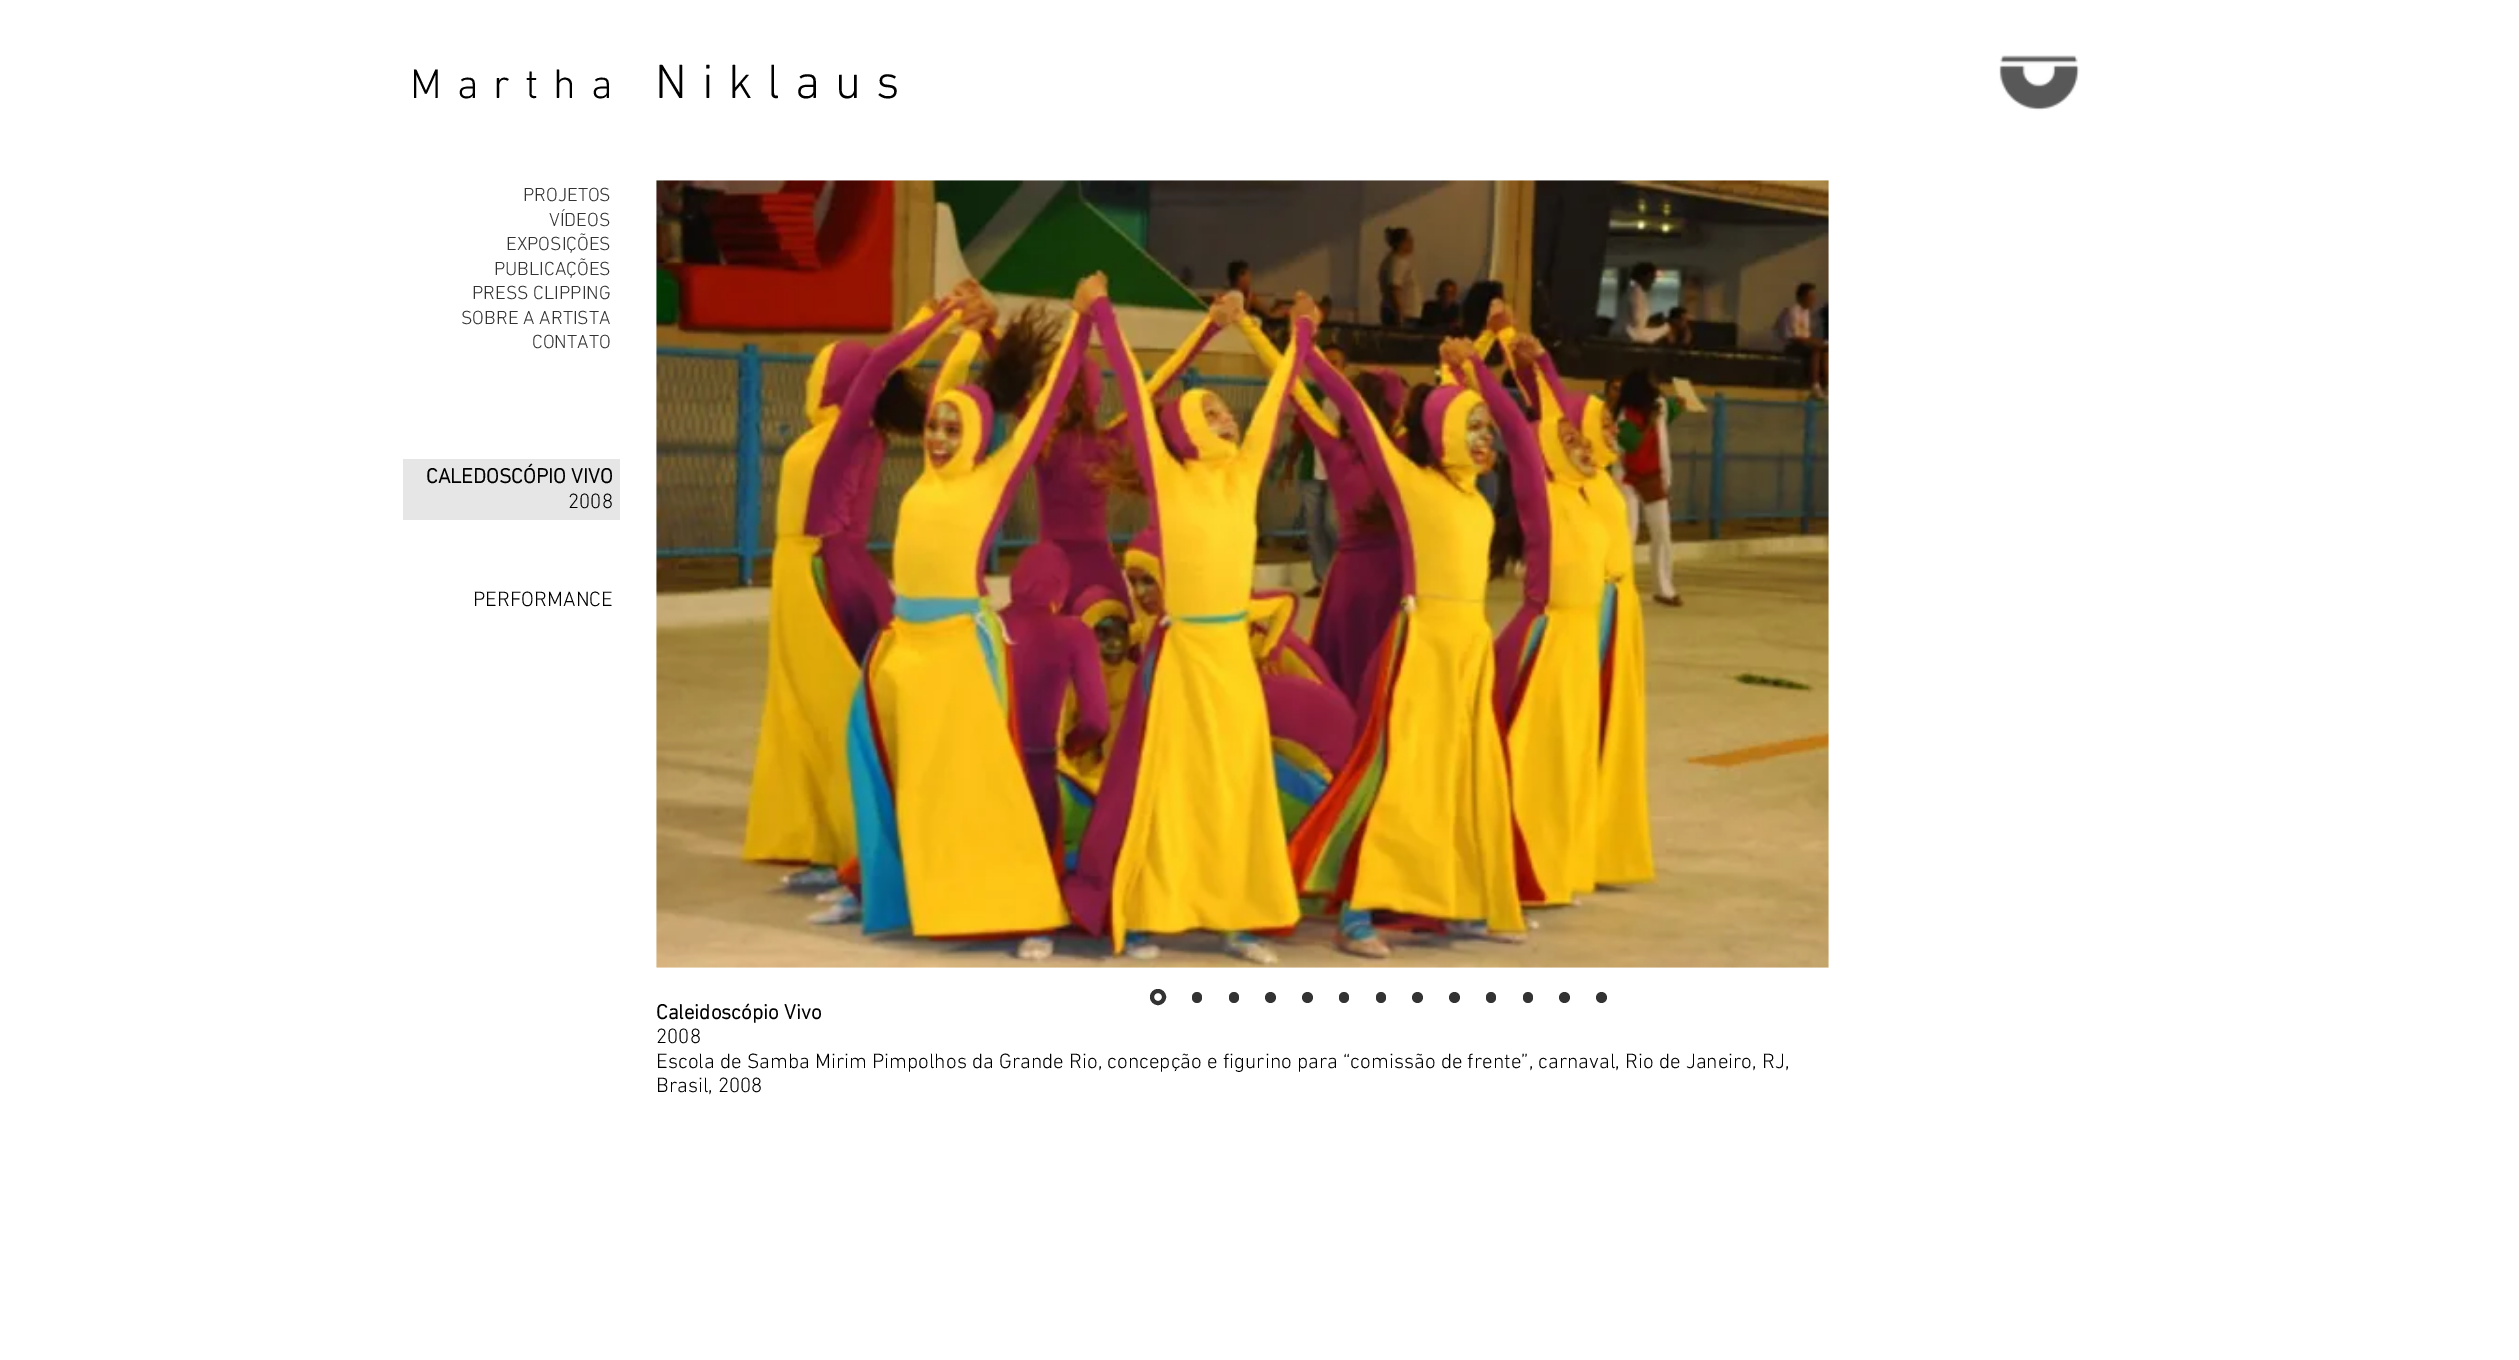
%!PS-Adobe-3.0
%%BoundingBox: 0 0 2519 1360
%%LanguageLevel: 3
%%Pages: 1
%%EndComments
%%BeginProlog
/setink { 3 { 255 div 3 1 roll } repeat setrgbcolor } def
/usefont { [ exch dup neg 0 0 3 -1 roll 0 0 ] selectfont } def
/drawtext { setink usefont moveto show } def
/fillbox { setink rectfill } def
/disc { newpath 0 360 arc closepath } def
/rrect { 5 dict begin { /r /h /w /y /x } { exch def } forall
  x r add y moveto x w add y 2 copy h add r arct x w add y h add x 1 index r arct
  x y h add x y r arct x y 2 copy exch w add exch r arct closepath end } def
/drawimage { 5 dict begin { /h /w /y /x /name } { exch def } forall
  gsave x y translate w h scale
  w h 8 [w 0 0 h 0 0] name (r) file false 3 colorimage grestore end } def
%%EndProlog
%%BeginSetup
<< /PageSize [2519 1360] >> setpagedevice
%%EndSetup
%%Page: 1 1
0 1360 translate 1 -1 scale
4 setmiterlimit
0 0 2519 1360 255 255 255 fillbox
/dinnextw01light-Light 42 usefont
0 0 0 setink
410 98 moveto 15 0 (Martha) ashow
/dinnextw01light-Light 49 usefont
655 98 moveto 14.75 0 (Niklaus) ashow
(assets/img1.rgb) 1999 55 81 56 drawimage
(PROJETOS) 523 201 /dinnextw01light-Light 19.25 51 51 51 drawtext
(VÍDEOS) 549 226 /dinnextw01light-Light 19.25 51 51 51 drawtext
(EXPOSIÇÕES) 506 250 /dinnextw01light-Light 19.25 51 51 51 drawtext
(PUBLICAÇÕES) 494 275 /dinnextw01light-Light 19.25 51 51 51 drawtext
(PRESS CLIPPING) 472 299 /dinnextw01light-Light 19.25 51 51 51 drawtext
(SOBRE A ARTISTA) 461 324 /dinnextw01light-Light 19.25 51 51 51 drawtext
(CONTATO) 532 348 /dinnextw01light-Light 19.25 51 51 51 drawtext
403 459 217 61 230 230 230 fillbox
(CALEDOSCÓPIO VIVO) 426 483 /dinnextw01light-Bold 21 0 0 0 drawtext
(2008) 568 508 /dinnextw01light-Light 21 0 0 0 drawtext
(PERFORMANCE) 473 606 /dinnextw01light-Light 21 0 0 0 drawtext
51 51 51 setink
4 setlinewidth
1158 997 6 disc stroke
1192 992 10 11 5 rrect fill
1229 992 10 11 5 rrect fill
1270.5 997.5 5.5 disc fill
1307.5 997.5 5.5 disc fill
1339 992 10 11 5 rrect fill
1376 992 10 11 5 rrect fill
1417.5 997.5 5.5 disc fill
1454.5 997.5 5.5 disc fill
1486 992 10 11 5 rrect fill
1523 992 10 11 5 rrect fill
1564.5 997.5 5.5 disc fill
1601.5 997.5 5.5 disc fill
(assets/img2.rgb) 656 180 1173 788 drawimage
(Caleidoscópio Vivo) 656 1019 /dinnextw01light-Bold 21 0 0 0 drawtext
(2008) 656 1043 /dinnextw01light-Light 21 0 0 0 drawtext
(Escola de Samba Mirim Pimpolhos da Grande Rio, concepção e figurino para “comissão de frente”, carnaval, Rio de Janeiro, RJ,) 656 1068 /dinnextw01light-Light 21 0 0 0 drawtext
(Brasil, 2008) 656 1092 /dinnextw01light-Light 21 0 0 0 drawtext
showpage
%%EOF
